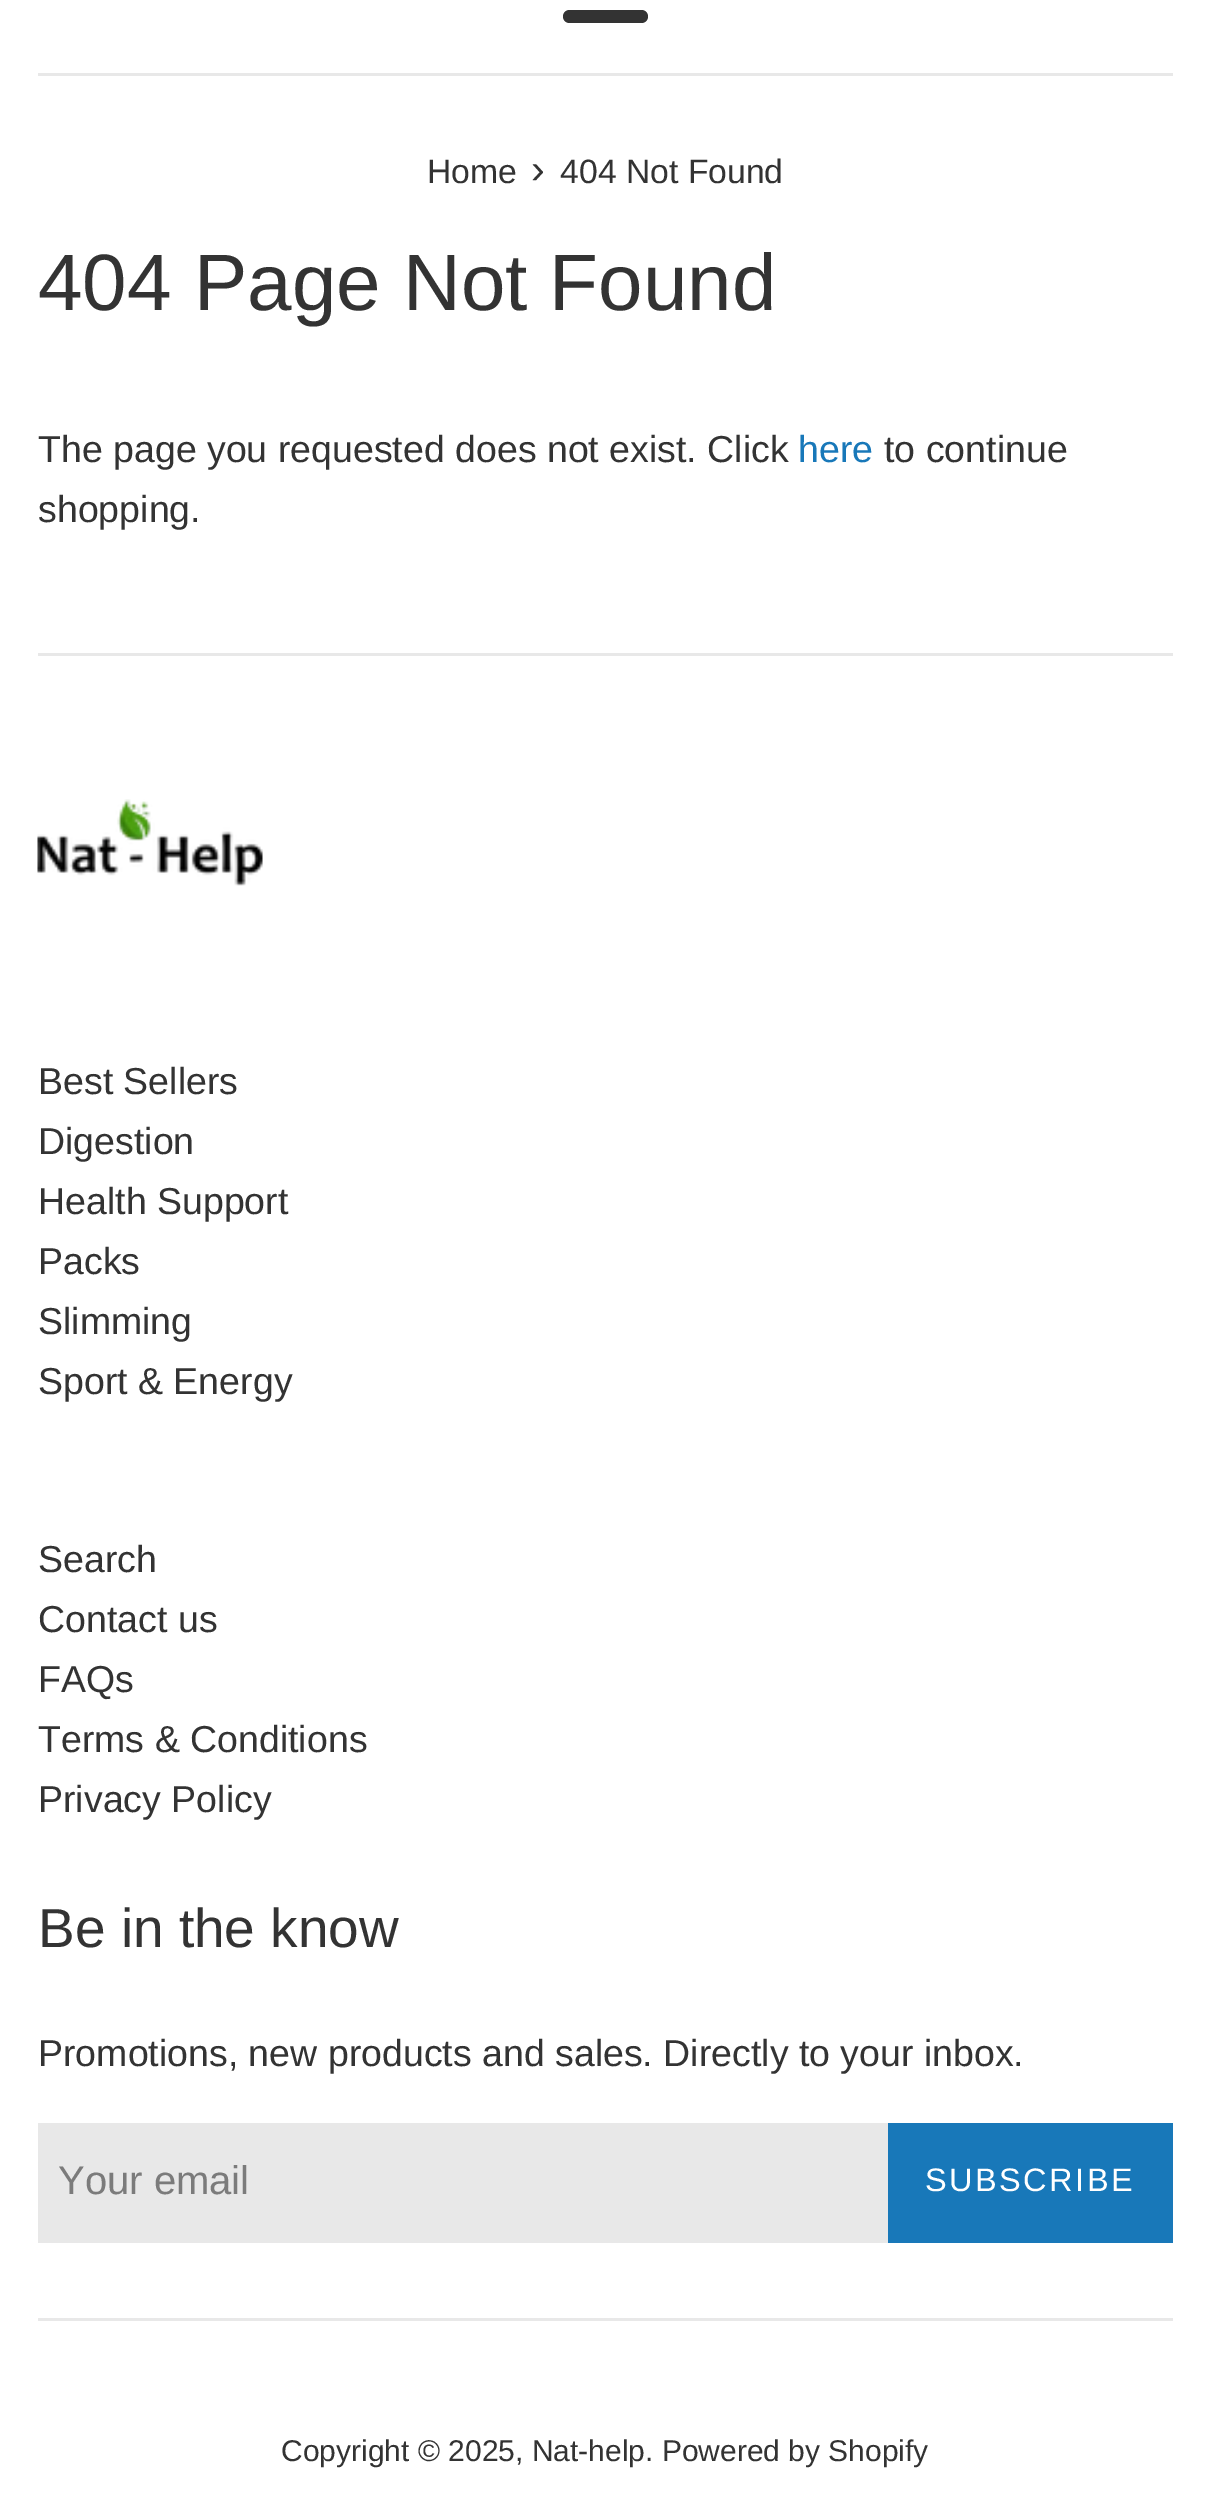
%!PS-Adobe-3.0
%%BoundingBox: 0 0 1208 2502
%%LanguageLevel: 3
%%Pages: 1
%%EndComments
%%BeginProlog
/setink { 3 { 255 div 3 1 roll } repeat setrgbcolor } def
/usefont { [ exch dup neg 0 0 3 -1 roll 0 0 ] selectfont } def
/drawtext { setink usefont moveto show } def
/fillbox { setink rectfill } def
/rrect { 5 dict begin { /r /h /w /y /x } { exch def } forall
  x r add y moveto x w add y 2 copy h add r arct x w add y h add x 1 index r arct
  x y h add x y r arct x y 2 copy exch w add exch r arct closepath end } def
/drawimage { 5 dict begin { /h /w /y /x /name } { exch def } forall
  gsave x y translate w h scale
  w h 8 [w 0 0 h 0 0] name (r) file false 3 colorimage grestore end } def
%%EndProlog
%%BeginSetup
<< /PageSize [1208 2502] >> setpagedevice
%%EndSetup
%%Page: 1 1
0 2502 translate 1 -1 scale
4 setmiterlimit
0 0 1208 2502 255 255 255 fillbox
51 51 51 setink
563 10 85 13 6.5 rrect fill
38 73 1135 3 232 232 232 fillbox
(Home) 427 183 /LiberationSans-Regular 33.75 51 51 51 drawtext
(›) 531 183 /LiberationSans-Regular 41 51 51 51 drawtext
(404 Not Found) 560 183 /LiberationSans-Regular 33.75 51 51 51 drawtext
(404 Page Not Found) 38 310 /LiberationSans-Regular 80 51 51 51 drawtext
(The page you requested does not exist. Click) 38 462 /LiberationSans-Regular 37.5 51 51 51 drawtext
(here) 798 462 /LiberationSans-Regular 37.5 24 120 185 drawtext
(to continue) 884 462 /LiberationSans-Regular 37.5 51 51 51 drawtext
(shopping.) 38 522 /LiberationSans-Regular 37.5 51 51 51 drawtext
38 653 1135 3 232 232 232 fillbox
(assets/img1.rgb) 37 799 226 87 drawimage
(Best Sellers) 38 1094 /LiberationSans-Regular 37.5 51 51 51 drawtext
(Digestion) 38 1154 /LiberationSans-Regular 37.5 51 51 51 drawtext
(Health Support) 38 1214 /LiberationSans-Regular 37.5 51 51 51 drawtext
(Packs) 38 1274 /LiberationSans-Regular 37.5 51 51 51 drawtext
(Slimming) 38 1334 /LiberationSans-Regular 37.5 51 51 51 drawtext
(Sport & Energy) 38 1394 /LiberationSans-Regular 37.5 51 51 51 drawtext
(Search) 38 1572 /LiberationSans-Regular 37.5 51 51 51 drawtext
(Contact us) 38 1632 /LiberationSans-Regular 37.5 51 51 51 drawtext
(FAQs) 38 1692 /LiberationSans-Regular 37.5 51 51 51 drawtext
(Terms & Conditions) 38 1752 /LiberationSans-Regular 37.5 51 51 51 drawtext
(Privacy Policy) 38 1812 /LiberationSans-Regular 37.5 51 51 51 drawtext
(Be in the know) 38 1947 /LiberationSans-Regular 55 51 51 51 drawtext
(Promotions, new products and sales. Directly to your inbox.) 38 2066 /LiberationSans-Regular 37.5 51 51 51 drawtext
38 2123 850 120 232 232 232 fillbox
(Your email) 58 2194 /LiberationSans-Regular 40 123 123 123 drawtext
888 2123 285 120 24 120 185 fillbox
/LiberationSans-Regular 32.5 usefont
255 255 255 setink
925 2191 moveto 2.5 0 (SUBSCRIBE) ashow
38 2318 1135 3 232 232 232 fillbox
(Copyright © 2025, Nat-help. Powered by Shopify) 281 2461 /LiberationSans-Regular 30 51 51 51 drawtext
showpage
%%EOF
